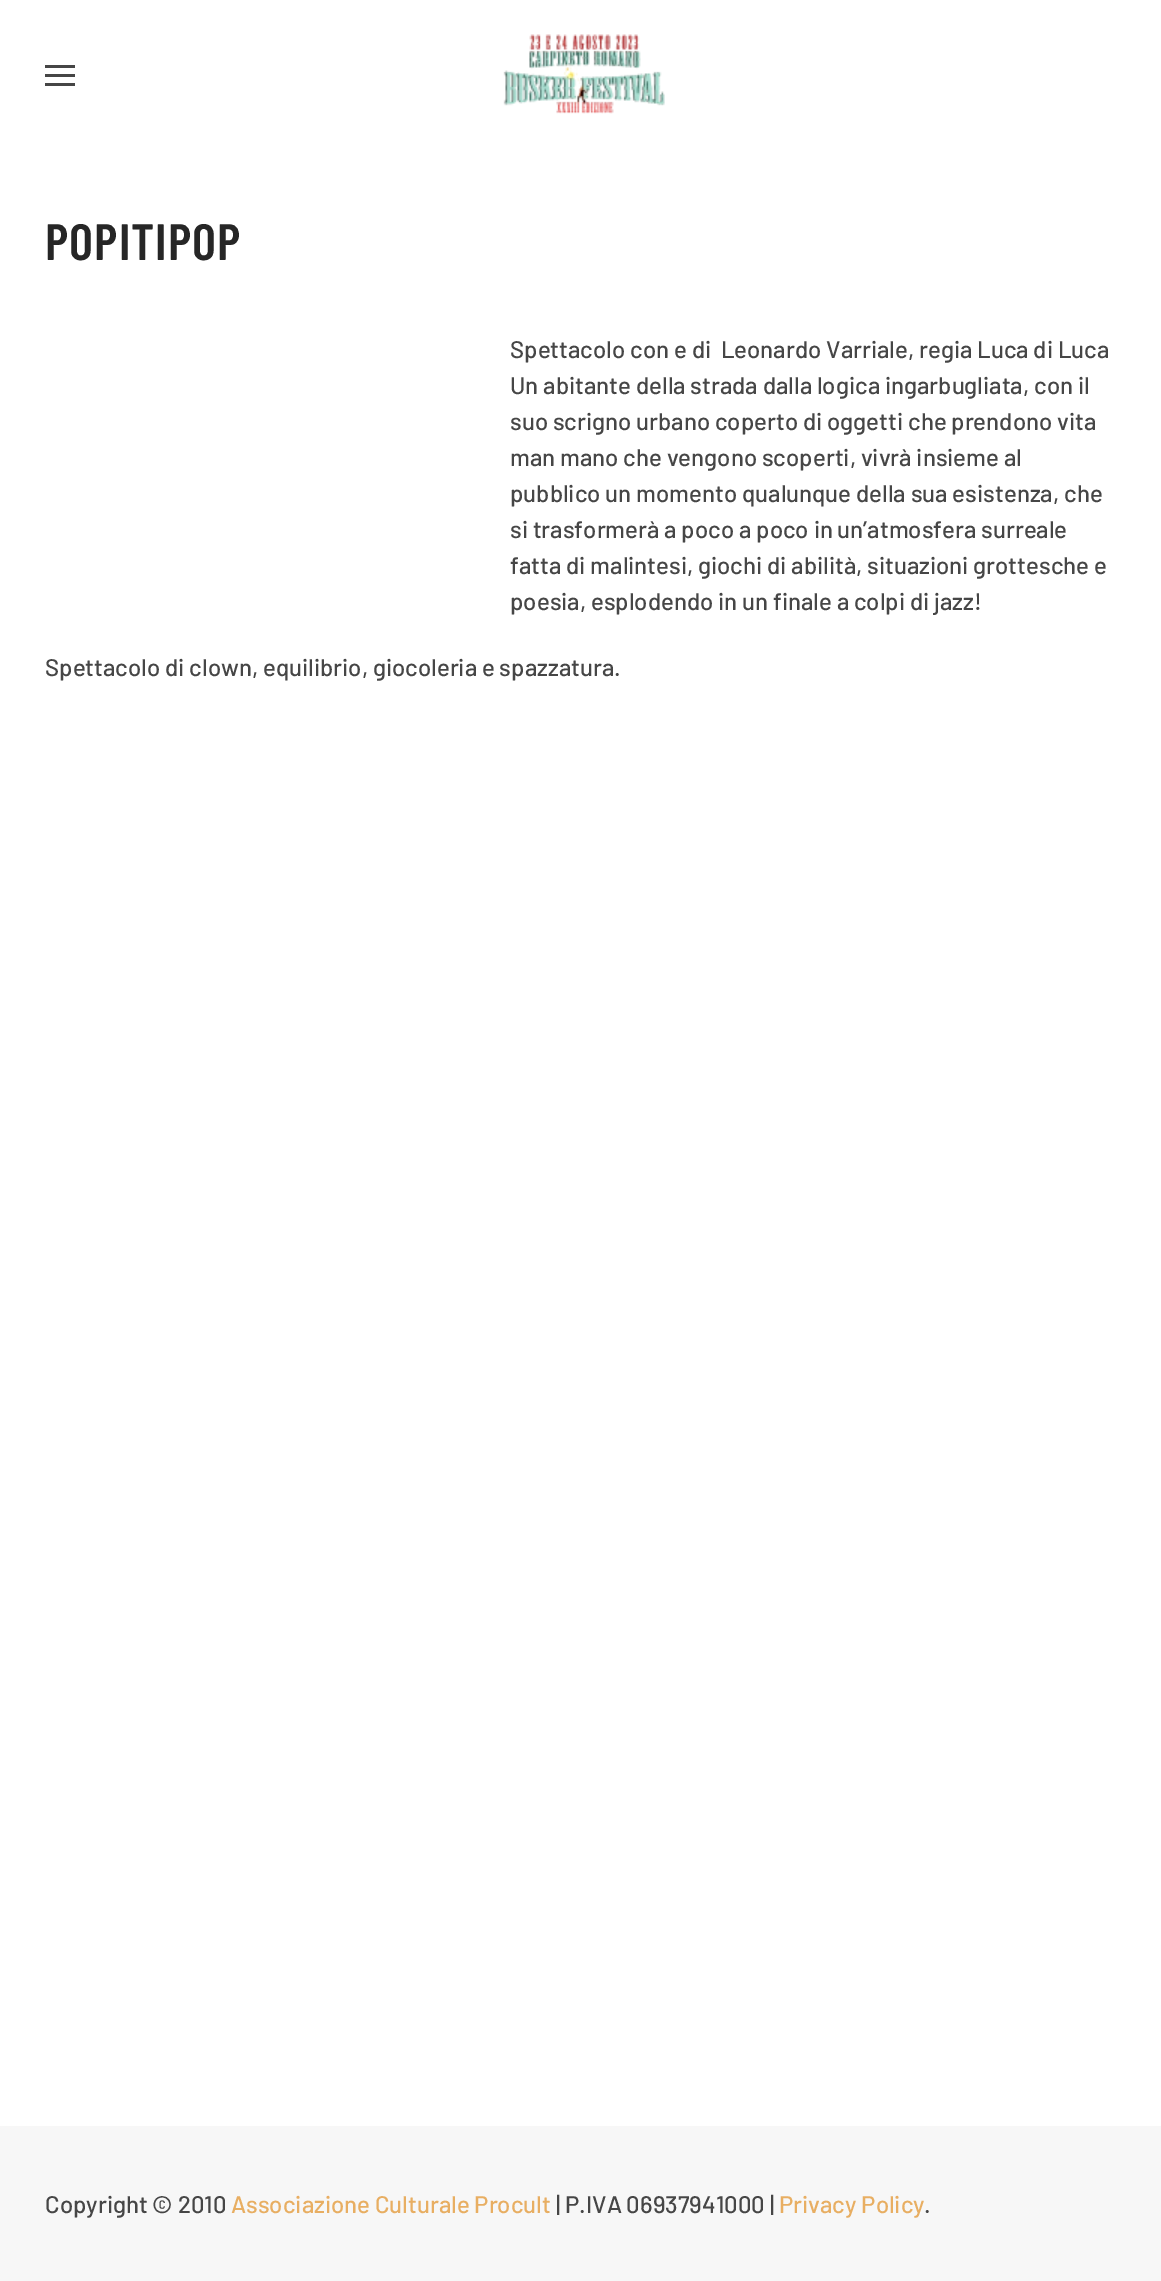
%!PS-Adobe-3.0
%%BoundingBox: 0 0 1161 2281
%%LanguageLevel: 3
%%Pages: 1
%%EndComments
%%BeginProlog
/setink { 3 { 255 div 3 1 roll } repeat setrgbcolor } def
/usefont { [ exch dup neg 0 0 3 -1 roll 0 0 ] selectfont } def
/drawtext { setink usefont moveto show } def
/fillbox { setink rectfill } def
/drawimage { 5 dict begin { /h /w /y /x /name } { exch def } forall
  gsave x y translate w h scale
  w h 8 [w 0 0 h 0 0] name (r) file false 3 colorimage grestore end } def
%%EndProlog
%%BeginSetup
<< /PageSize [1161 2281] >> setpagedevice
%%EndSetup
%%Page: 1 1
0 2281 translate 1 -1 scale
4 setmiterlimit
0 0 1161 2281 255 255 255 fillbox
45 65 30 3 70 70 70 fillbox
45 74 30 3 70 70 70 fillbox
45 83 30 3 70 70 70 fillbox
(assets/img1.rgb) 503 34 162 80 drawimage
/BarlowCondensed-SemiBold 51 usefont
38 38 38 setink
45 260 moveto 1.1 0 (POPITIPOP) ashow
(Spettacolo con e di  Leonardo Varriale, regia Luca di Luca) 510 358 /Barlow-Medium 24 70 70 70 drawtext
(Un abitante della strada dalla logica ingarbugliata, con il) 510 394 /Barlow-Medium 24 70 70 70 drawtext
(suo scrigno urbano coperto di oggetti che prendono vita) 510 430 /Barlow-Medium 24 70 70 70 drawtext
(man mano che vengono scoperti, vivrà insieme al) 510 466 /Barlow-Medium 24 70 70 70 drawtext
(pubblico un momento qualunque della sua esistenza, che) 510 502 /Barlow-Medium 24 70 70 70 drawtext
(si trasformerà a poco a poco in un’atmosfera surreale) 510 538 /Barlow-Medium 24 70 70 70 drawtext
(fatta di malintesi, giochi di abilità, situazioni grottesche e) 510 574 /Barlow-Medium 24 70 70 70 drawtext
(poesia, esplodendo in un finale a colpi di jazz!) 510 610 /Barlow-Medium 24 70 70 70 drawtext
(Spettacolo di clown, equilibrio, giocoleria e spazzatura.) 45 676 /Barlow-Medium 24 70 70 70 drawtext
0 2126 1161 155 247 247 247 fillbox
(Copyright © 2010) 45 2213 /Barlow-Medium 24 70 70 70 drawtext
(Associazione Culturale Procult) 231 2213 /Barlow-Medium 24 232 174 98 drawtext
(| P.IVA 06937941000 |) 556 2213 /Barlow-Medium 24 70 70 70 drawtext
(Privacy Policy) 779 2213 /Barlow-Medium 24 232 174 98 drawtext
(.) 924 2213 /Barlow-Medium 24 70 70 70 drawtext
showpage
%%EOF
